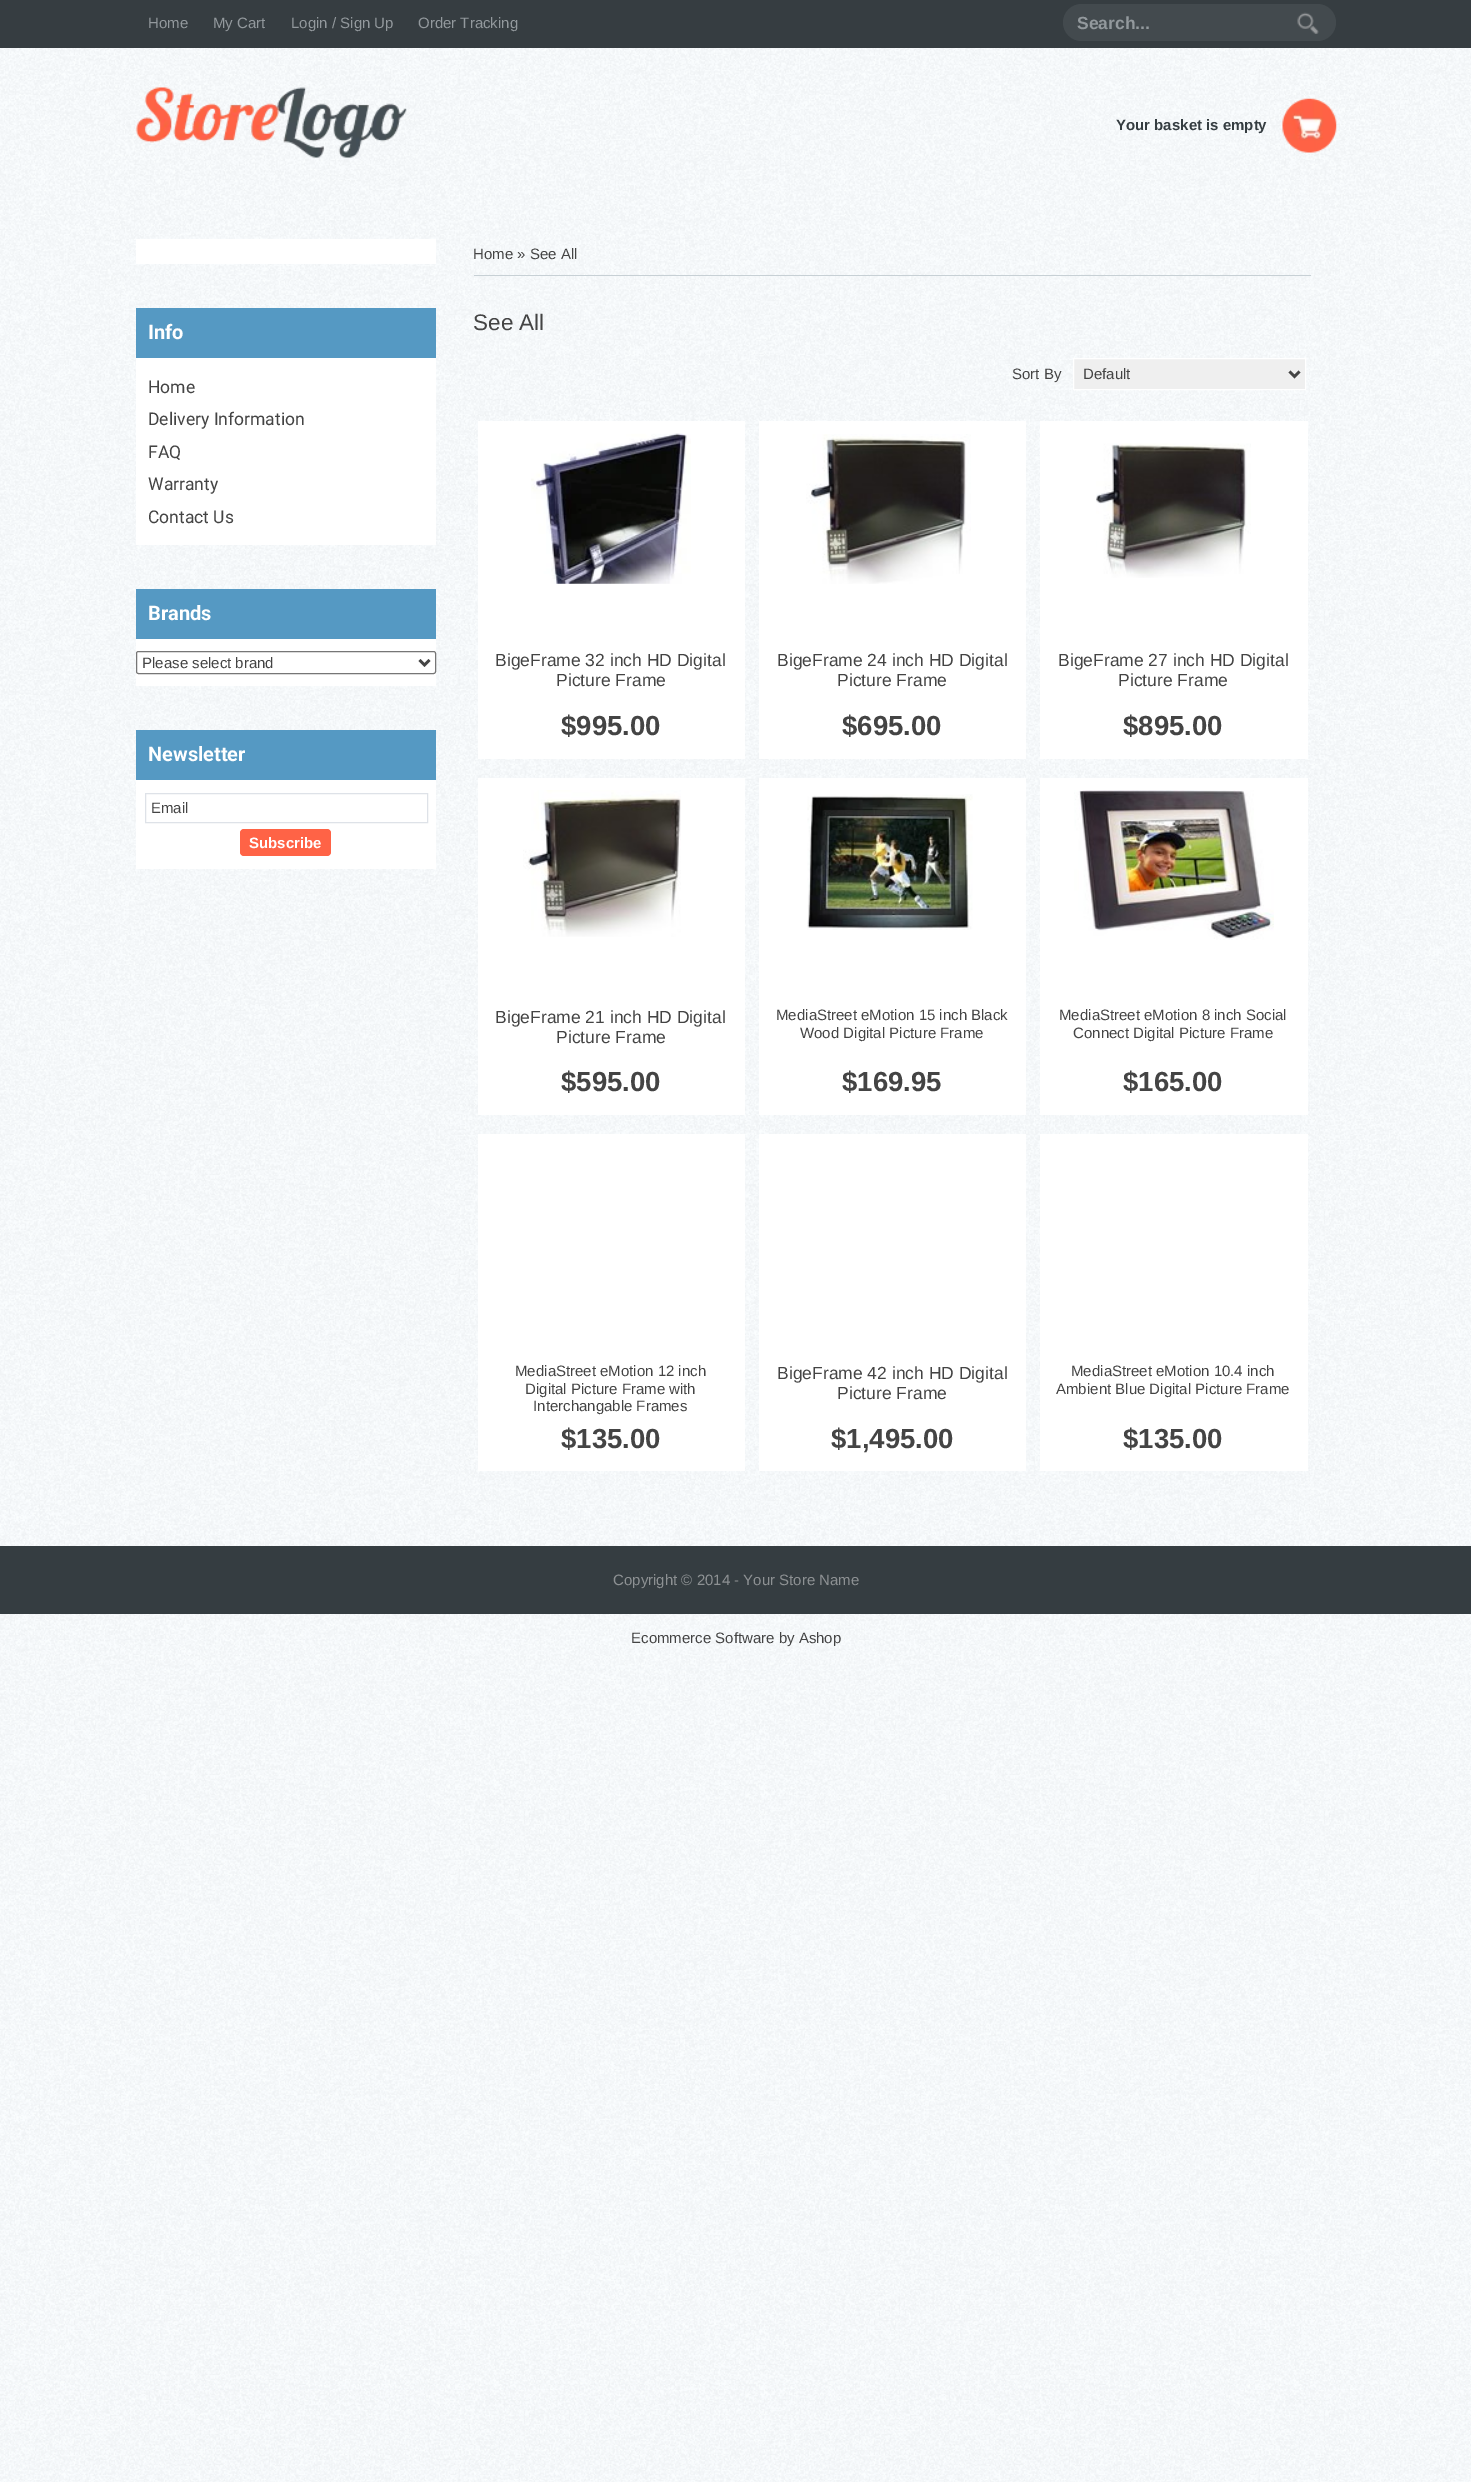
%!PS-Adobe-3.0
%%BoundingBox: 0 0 1471 2482
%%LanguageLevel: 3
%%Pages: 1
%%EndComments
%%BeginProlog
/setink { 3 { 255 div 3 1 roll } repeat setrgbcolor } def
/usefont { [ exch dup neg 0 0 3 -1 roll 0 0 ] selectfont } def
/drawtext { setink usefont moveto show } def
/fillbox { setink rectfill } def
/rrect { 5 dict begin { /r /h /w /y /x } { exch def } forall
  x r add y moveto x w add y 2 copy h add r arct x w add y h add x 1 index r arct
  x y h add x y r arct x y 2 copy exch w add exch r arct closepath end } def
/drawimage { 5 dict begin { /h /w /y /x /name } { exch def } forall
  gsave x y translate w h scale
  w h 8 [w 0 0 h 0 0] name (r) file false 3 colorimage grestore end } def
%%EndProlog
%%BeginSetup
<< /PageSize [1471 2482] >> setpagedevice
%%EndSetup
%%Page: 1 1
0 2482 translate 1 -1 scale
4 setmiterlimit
0 0 1471 2482 255 255 255 fillbox
(assets/img1.rgb) 0 48 1471 2434 drawimage
0 0 1471 48 54 61 65 fillbox
(Home) 148 28 /LiberationSans-Regular 15 147 153 157 drawtext
(My Cart) 213 28 /LiberationSans-Regular 15 147 153 157 drawtext
(Login / Sign Up) 291 28 /LiberationSans-Regular 15 147 153 157 drawtext
(Order Tracking) 418 28 /LiberationSans-Regular 15 147 153 157 drawtext
67 74 78 setink
1063 4 273 37 18.5 rrect fill
(Search...) 1077 29 /LiberationSans-Bold 17.5 147 153 157 drawtext
(assets/img2.rgb) 1297 12 22 22 drawimage
(assets/img3.rgb) 136 87 271 71 drawimage
(assets/img4.rgb) 1282 98 55 55 drawimage
(Your basket is empty) 1116 130 /LiberationSans-Bold 15 53 61 65 drawtext
136 239 300 25 255 255 255 fillbox
136 358 300 187 255 255 255 fillbox
136 308 300 50 85 153 195 fillbox
(Info) 148 339 /Roboto-Bold 20 255 255 255 drawtext
(Home) 148 393 /Roboto-Regular 17.5 68 68 68 drawtext
(Delivery Information) 148 425 /Roboto-Regular 17.5 68 68 68 drawtext
(FAQ) 148 458 /Roboto-Regular 17.5 68 68 68 drawtext
(Warranty) 148 490 /Roboto-Regular 17.5 68 68 68 drawtext
(Contact Us) 148 523 /Roboto-Regular 17.5 68 68 68 drawtext
136 639 300 47 255 255 255 fillbox
136 589 300 50 85 153 195 fillbox
(Brands) 148 620 /Roboto-Bold 20 255 255 255 drawtext
118 118 118 setink
136.5 651.5 299 22 2 rrect stroke
68 68 68 setink
2.5 setlinewidth
419.5 660 moveto 424.5 665 lineto 429.5 660 lineto stroke
(Please select brand) 142 668 /LiberationSans-Regular 15 68 68 68 drawtext
136 780 300 89 255 255 255 fillbox
136 730 300 50 85 153 195 fillbox
(Newsletter) 148 761 /Roboto-Bold 20 255 255 255 drawtext
222 226 232 setink
1 setlinewidth
145.5 793.5 282 29 rectstroke
(Email) 151 813 /LiberationSans-Regular 15 68 68 68 drawtext
255 99 70 setink
240 829 91 27 4 rrect fill
(Subscribe) 249 848 /LiberationSans-Bold 15 255 255 255 drawtext
474 275 837 1 199 208 213 fillbox
(Home » See All) 473 259 /LiberationSans-Regular 15 68 68 68 drawtext
(See All) 473 330 /LiberationSans-Regular 22.5 68 68 68 drawtext
(Sort By) 1012 379 /LiberationSans-Regular 15 68 68 68 drawtext
239 239 239 setink
1073.5 358.5 moveto 1305.5 358.5 lineto 1305.5 389.5 lineto 1073.5 389.5 lineto closepath gsave fill grestore
255 255 255 setink
stroke
68 68 68 setink
2.5 setlinewidth
1289.5 371.5 moveto 1294.5 376.5 lineto 1299.5 371.5 lineto stroke
(Default) 1083 379 /LiberationSans-Regular 15 68 68 68 drawtext
478 421 267 338 255 255 255 fillbox
(assets/img5.rgb) 531 433 160 151 drawimage
(BigeFrame 32 inch HD Digital) 495 666 /LiberationSans-Regular 17.5 68 68 68 drawtext
(Picture Frame) 556 686 /LiberationSans-Regular 17.5 68 68 68 drawtext
($995.00) 561 735 /LiberationSans-Bold 27.5 68 68 68 drawtext
759 421 267 338 255 255 255 fillbox
(assets/img6.rgb) 806 434 165 150 drawimage
(BigeFrame 24 inch HD Digital) 777 666 /LiberationSans-Regular 17.5 68 68 68 drawtext
(Picture Frame) 837 686 /LiberationSans-Regular 17.5 68 68 68 drawtext
($695.00) 842 735 /LiberationSans-Bold 27.5 68 68 68 drawtext
1040 421 268 338 255 255 255 fillbox
(assets/img7.rgb) 1096 443 155 135 drawimage
(BigeFrame 27 inch HD Digital) 1058 666 /LiberationSans-Regular 17.5 68 68 68 drawtext
(Picture Frame) 1118 686 /LiberationSans-Regular 17.5 68 68 68 drawtext
($895.00) 1123 735 /LiberationSans-Bold 27.5 68 68 68 drawtext
478 778 267 337 255 255 255 fillbox
(assets/img8.rgb) 523 790 158 147 drawimage
(BigeFrame 21 inch HD Digital) 495 1023 /LiberationSans-Regular 17.5 68 68 68 drawtext
(Picture Frame) 556 1043 /LiberationSans-Regular 17.5 68 68 68 drawtext
($595.00) 561 1091 /LiberationSans-Bold 27.5 68 68 68 drawtext
759 778 267 337 255 255 255 fillbox
(assets/img9.rgb) 807 794 166 136 drawimage
(MediaStreet eMotion 15 inch Black) 776 1020 /LiberationSans-Regular 15 68 68 68 drawtext
(Wood Digital Picture Frame) 800 1038 /LiberationSans-Regular 15 68 68 68 drawtext
($169.95) 842 1091 /LiberationSans-Bold 27.5 68 68 68 drawtext
1040 778 268 337 255 255 255 fillbox
(assets/img10.rgb) 1074 790 200 150 drawimage
(MediaStreet eMotion 8 inch Social) 1059 1020 /LiberationSans-Regular 15 68 68 68 drawtext
(Connect Digital Picture Frame) 1073 1038 /LiberationSans-Regular 15 68 68 68 drawtext
($165.00) 1123 1091 /LiberationSans-Bold 27.5 68 68 68 drawtext
478 1134 267 337 255 255 255 fillbox
(MediaStreet eMotion 12 inch) 515 1376 /LiberationSans-Regular 15 68 68 68 drawtext
(Digital Picture Frame with) 525 1394 /LiberationSans-Regular 15 68 68 68 drawtext
(Interchangable Frames) 533 1411 /LiberationSans-Regular 15 68 68 68 drawtext
($135.00) 561 1448 /LiberationSans-Bold 27.5 68 68 68 drawtext
759 1134 267 337 255 255 255 fillbox
(BigeFrame 42 inch HD Digital) 777 1379 /LiberationSans-Regular 17.5 68 68 68 drawtext
(Picture Frame) 837 1399 /LiberationSans-Regular 17.5 68 68 68 drawtext
($1,495.00) 831 1448 /LiberationSans-Bold 27.5 68 68 68 drawtext
1040 1134 268 337 255 255 255 fillbox
(MediaStreet eMotion 10.4 inch) 1071 1376 /LiberationSans-Regular 15 68 68 68 drawtext
(Ambient Blue Digital Picture Frame) 1056 1394 /LiberationSans-Regular 15 68 68 68 drawtext
($135.00) 1123 1448 /LiberationSans-Bold 27.5 68 68 68 drawtext
0 1546 1471 68 53 61 65 fillbox
(Copyright © 2014 - Your Store Name) 613 1585 /LiberationSans-Regular 15 141 145 147 drawtext
(Ecommerce Software by Ashop) 631 1643 /LiberationSans-Regular 15 68 68 68 drawtext
showpage
%%EOF
